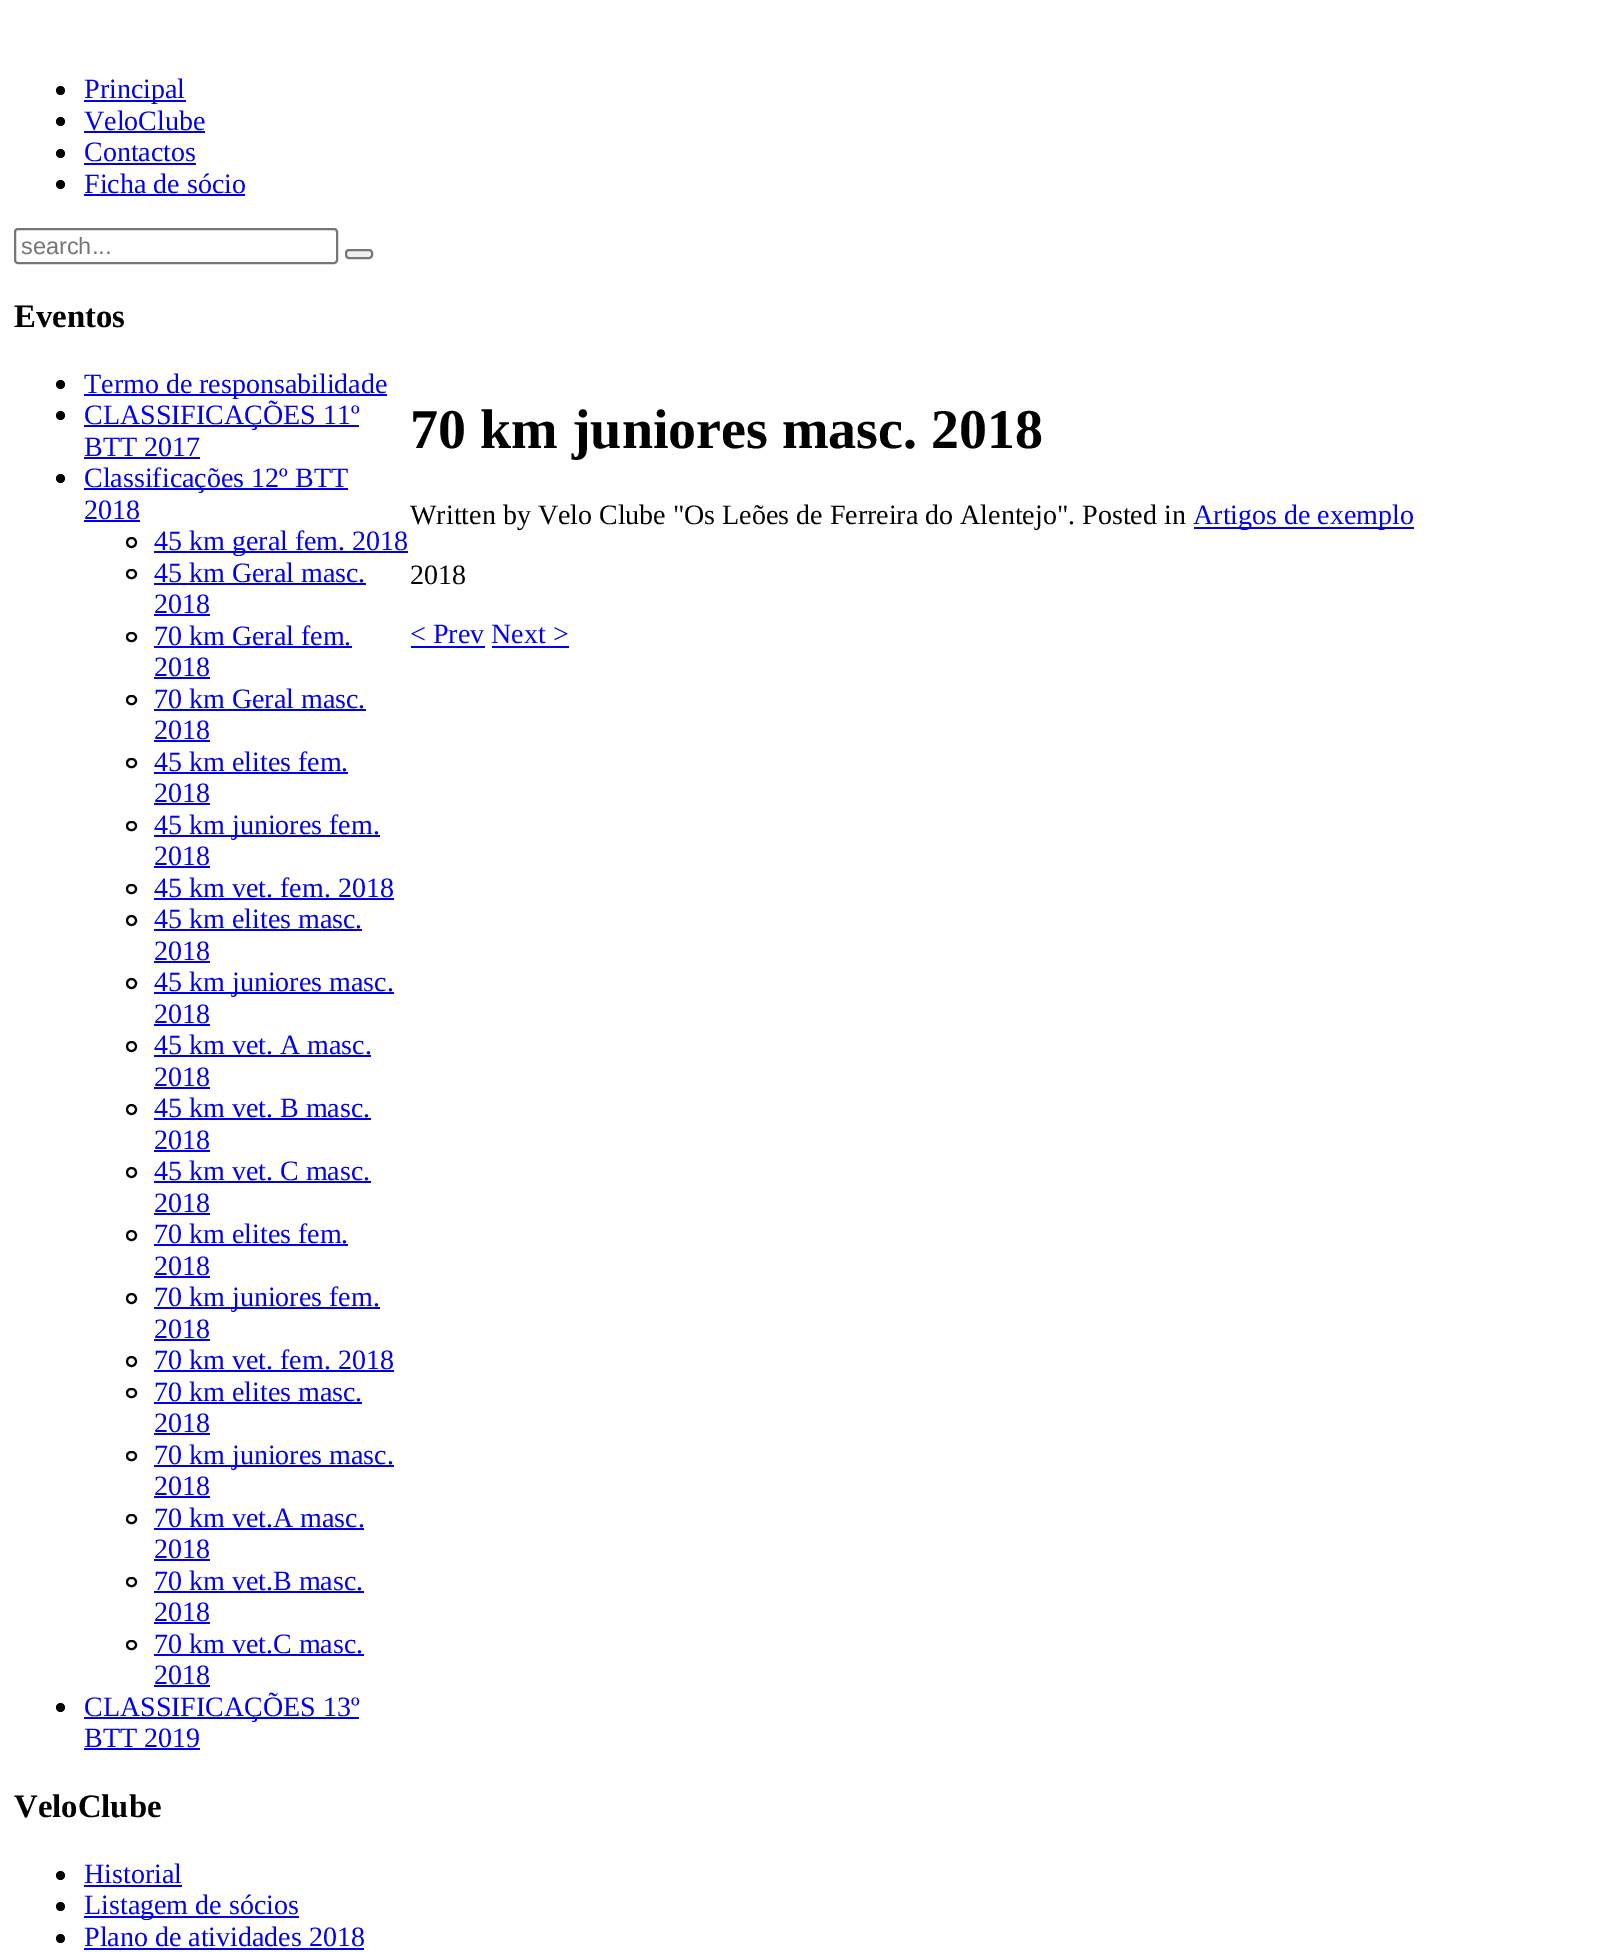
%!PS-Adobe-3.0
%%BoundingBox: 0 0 1612 1952
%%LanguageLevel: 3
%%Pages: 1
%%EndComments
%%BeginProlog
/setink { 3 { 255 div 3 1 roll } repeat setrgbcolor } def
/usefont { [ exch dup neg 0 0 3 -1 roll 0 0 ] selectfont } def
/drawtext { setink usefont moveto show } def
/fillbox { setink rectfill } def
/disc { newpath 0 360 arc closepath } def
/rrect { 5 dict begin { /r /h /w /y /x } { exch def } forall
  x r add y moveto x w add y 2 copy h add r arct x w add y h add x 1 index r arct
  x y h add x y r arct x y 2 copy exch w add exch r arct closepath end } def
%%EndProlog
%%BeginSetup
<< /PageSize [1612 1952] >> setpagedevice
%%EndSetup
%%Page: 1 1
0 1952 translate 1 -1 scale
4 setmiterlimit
0 0 1612 1952 255 255 255 fillbox
0 0 0 setink
60.5 90.5 4.5 disc fill
84 100 102 2 0 0 238 fillbox
(Principal) 84 98 /LiberationSerif-Regular 28 0 0 238 drawtext
0 0 0 setink
60.5 121.5 4.5 disc fill
(VeloClube) 84 130 /LiberationSerif-Regular 28 0 0 238 drawtext
84 131 121 2 0 0 238 fillbox
0 0 0 setink
60.5 153.5 4.5 disc fill
(Contactos) 84 161 /LiberationSerif-Regular 28 0 0 238 drawtext
84 163 112 2 0 0 238 fillbox
0 0 0 setink
60.5 184.5 4.5 disc fill
(Ficha de sócio) 84 193 /LiberationSerif-Regular 28 0 0 238 drawtext
84 194 161 2 0 0 238 fillbox
118 118 118 setink
2 setlinewidth
15 229 322 34 3 rrect stroke
(search...) 21 254 /LiberationSans-Regular 23.5 117 117 117 drawtext
239 239 239 setink
346 250 26 8 3 rrect gsave fill grestore
118 118 118 setink
stroke
(Eventos) 14 327 /LiberationSerif-Bold 32.75 0 0 0 drawtext
60.5 384.5 4.5 disc fill
84 394 303 2 0 0 238 fillbox
(Termo de responsabilidade) 84 393 /LiberationSerif-Regular 28 0 0 238 drawtext
0 0 0 setink
60.5 415.5 4.5 disc fill
84 425 275 2 0 0 238 fillbox
(CLASSIFICAÇÕES 11º) 84 424 /LiberationSerif-Regular 28 0 0 238 drawtext
(BTT 2017) 84 456 /LiberationSerif-Regular 28 0 0 238 drawtext
84 457 116 2 0 0 238 fillbox
0 0 0 setink
60.5 478.5 4.5 disc fill
84 488 264 2 0 0 238 fillbox
(Classificações 12º BTT) 84 487 /LiberationSerif-Regular 28 0 0 238 drawtext
(2018) 84 519 /LiberationSerif-Regular 28 0 0 238 drawtext
84 520 56 2 0 0 238 fillbox
0 0 0 setink
131.5 542.5 4.5 disc stroke
154 551 254 2 0 0 238 fillbox
(45 km geral fem. 2018) 154 550 /LiberationSerif-Regular 28 0 0 238 drawtext
0 0 0 setink
127 570 9 8 4 rrect stroke
(45 km Geral masc.) 154 582 /LiberationSerif-Regular 28 0 0 238 drawtext
154 583 212 2 0 0 238 fillbox
(2018) 154 613 /LiberationSerif-Regular 28 0 0 238 drawtext
154 614 56 2 0 0 238 fillbox
0 0 0 setink
127 633 9 8 4 rrect stroke
(70 km Geral fem.) 154 645 /LiberationSerif-Regular 28 0 0 238 drawtext
154 646 198 2 0 0 238 fillbox
(2018) 154 676 /LiberationSerif-Regular 28 0 0 238 drawtext
154 677 56 2 0 0 238 fillbox
0 0 0 setink
127 696 9 8 4 rrect stroke
(70 km Geral masc.) 154 708 /LiberationSerif-Regular 28 0 0 238 drawtext
154 709 212 2 0 0 238 fillbox
(2018) 154 739 /LiberationSerif-Regular 28 0 0 238 drawtext
154 740 56 2 0 0 238 fillbox
0 0 0 setink
127 759 9 8 4 rrect stroke
(45 km elites fem.) 154 771 /LiberationSerif-Regular 28 0 0 238 drawtext
154 772 194 2 0 0 238 fillbox
(2018) 154 802 /LiberationSerif-Regular 28 0 0 238 drawtext
154 803 56 2 0 0 238 fillbox
0 0 0 setink
127 822 9 8 4 rrect stroke
154 835 226 2 0 0 238 fillbox
(45 km juniores fem.) 154 834 /LiberationSerif-Regular 28 0 0 238 drawtext
(2018) 154 865 /LiberationSerif-Regular 28 0 0 238 drawtext
154 866 56 2 0 0 238 fillbox
0 0 0 setink
127 885 9 8 4 rrect stroke
(45 km vet. fem. 2018) 154 897 /LiberationSerif-Regular 28 0 0 238 drawtext
154 898 240 2 0 0 238 fillbox
0 0 0 setink
131.5 920.5 4.5 disc stroke
(45 km elites masc.) 154 928 /LiberationSerif-Regular 28 0 0 238 drawtext
154 929 208 2 0 0 238 fillbox
(2018) 154 960 /LiberationSerif-Regular 28 0 0 238 drawtext
154 961 56 2 0 0 238 fillbox
0 0 0 setink
131.5 983.5 4.5 disc stroke
154 992 240 2 0 0 238 fillbox
(45 km juniores masc.) 154 991 /LiberationSerif-Regular 28 0 0 238 drawtext
(2018) 154 1023 /LiberationSerif-Regular 28 0 0 238 drawtext
154 1024 56 2 0 0 238 fillbox
0 0 0 setink
131.5 1046.5 4.5 disc stroke
(45 km vet. A masc.) 154 1054 /LiberationSerif-Regular 28 0 0 238 drawtext
154 1055 217 2 0 0 238 fillbox
(2018) 154 1086 /LiberationSerif-Regular 28 0 0 238 drawtext
154 1087 56 2 0 0 238 fillbox
0 0 0 setink
131.5 1109.5 4.5 disc stroke
(45 km vet. B masc.) 154 1117 /LiberationSerif-Regular 28 0 0 238 drawtext
154 1118 217 2 0 0 238 fillbox
(2018) 154 1149 /LiberationSerif-Regular 28 0 0 238 drawtext
154 1150 56 2 0 0 238 fillbox
0 0 0 setink
131.5 1172.5 4.5 disc stroke
(45 km vet. C masc.) 154 1180 /LiberationSerif-Regular 28 0 0 238 drawtext
154 1181 217 2 0 0 238 fillbox
(2018) 154 1212 /LiberationSerif-Regular 28 0 0 238 drawtext
154 1213 56 2 0 0 238 fillbox
0 0 0 setink
131.5 1235.5 4.5 disc stroke
(70 km elites fem.) 154 1243 /LiberationSerif-Regular 28 0 0 238 drawtext
154 1244 194 2 0 0 238 fillbox
(2018) 154 1275 /LiberationSerif-Regular 28 0 0 238 drawtext
154 1276 56 2 0 0 238 fillbox
0 0 0 setink
131.5 1298.5 4.5 disc stroke
154 1307 226 2 0 0 238 fillbox
(70 km juniores fem.) 154 1306 /LiberationSerif-Regular 28 0 0 238 drawtext
(2018) 154 1338 /LiberationSerif-Regular 28 0 0 238 drawtext
154 1339 56 2 0 0 238 fillbox
0 0 0 setink
131.5 1361.5 4.5 disc stroke
(70 km vet. fem. 2018) 154 1369 /LiberationSerif-Regular 28 0 0 238 drawtext
154 1370 240 2 0 0 238 fillbox
0 0 0 setink
127 1389 9 8 4 rrect stroke
(70 km elites masc.) 154 1401 /LiberationSerif-Regular 28 0 0 238 drawtext
154 1402 208 2 0 0 238 fillbox
(2018) 154 1432 /LiberationSerif-Regular 28 0 0 238 drawtext
154 1433 56 2 0 0 238 fillbox
0 0 0 setink
127 1452 9 8 4 rrect stroke
154 1465 240 2 0 0 238 fillbox
(70 km juniores masc.) 154 1464 /LiberationSerif-Regular 28 0 0 238 drawtext
(2018) 154 1495 /LiberationSerif-Regular 28 0 0 238 drawtext
154 1496 56 2 0 0 238 fillbox
0 0 0 setink
127 1515 9 8 4 rrect stroke
(70 km vet.A masc.) 154 1527 /LiberationSerif-Regular 28 0 0 238 drawtext
154 1528 210 2 0 0 238 fillbox
(2018) 154 1558 /LiberationSerif-Regular 28 0 0 238 drawtext
154 1559 56 2 0 0 238 fillbox
0 0 0 setink
127 1578 9 8 4 rrect stroke
(70 km vet.B masc.) 154 1590 /LiberationSerif-Regular 28 0 0 238 drawtext
154 1591 210 2 0 0 238 fillbox
(2018) 154 1621 /LiberationSerif-Regular 28 0 0 238 drawtext
154 1622 56 2 0 0 238 fillbox
0 0 0 setink
127 1641 9 8 4 rrect stroke
(70 km vet.C masc.) 154 1653 /LiberationSerif-Regular 28 0 0 238 drawtext
154 1654 210 2 0 0 238 fillbox
(2018) 154 1684 /LiberationSerif-Regular 28 0 0 238 drawtext
154 1685 56 2 0 0 238 fillbox
0 0 0 setink
60.5 1707.5 4.5 disc fill
84 1717 275 2 0 0 238 fillbox
(CLASSIFICAÇÕES 13º) 84 1716 /LiberationSerif-Regular 28 0 0 238 drawtext
(BTT 2019) 84 1747 /LiberationSerif-Regular 28 0 0 238 drawtext
84 1748 116 2 0 0 238 fillbox
(VeloClube) 14 1817 /LiberationSerif-Bold 32.75 0 0 0 drawtext
60.5 1875.5 4.5 disc fill
(Historial) 84 1883 /LiberationSerif-Regular 28 0 0 238 drawtext
84 1885 98 2 0 0 238 fillbox
0 0 0 setink
60.5 1906.5 4.5 disc fill
84 1916 215 2 0 0 238 fillbox
(Listagem de sócios) 84 1914 /LiberationSerif-Regular 28 0 0 238 drawtext
0 0 0 setink
60.5 1938.5 4.5 disc fill
(Plano de atividades 2018) 84 1946 /LiberationSerif-Regular 28 0 0 238 drawtext
84 1948 280 2 0 0 238 fillbox
(70 km juniores masc. 2018) 410 448 /LiberationSerif-Bold 56 0 0 0 drawtext
(Written by Velo Clube "Os Leões de Ferreira do Alentejo". Posted in) 410 524 /LiberationSerif-Regular 28 0 0 0 drawtext
1194 527 220 2 0 0 238 fillbox
(Artigos de exemplo) 1193 524 /LiberationSerif-Regular 28 0 0 238 drawtext
(2018) 410 584 /LiberationSerif-Regular 28 0 0 0 drawtext
(< Prev Next >) 410 643 /LiberationSerif-Regular 28 0 0 238 drawtext
411 646 74 2 0 0 238 fillbox
492 646 77 2 0 0 238 fillbox
showpage
%%EOF
